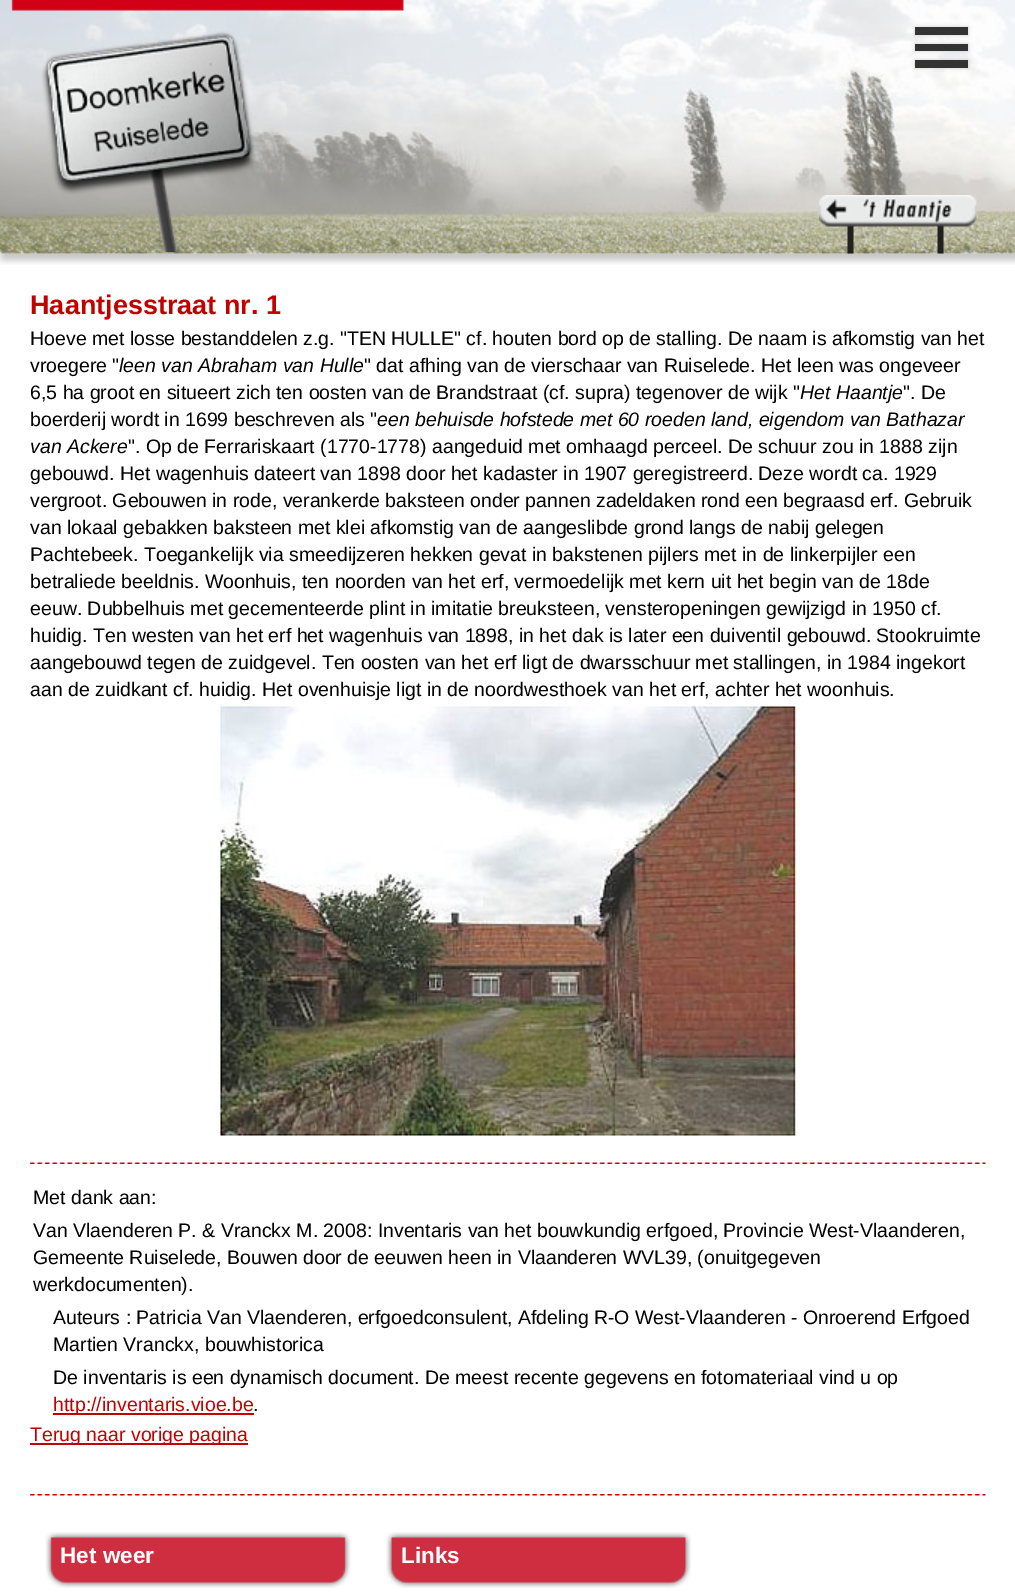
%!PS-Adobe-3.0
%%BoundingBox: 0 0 1015 1592
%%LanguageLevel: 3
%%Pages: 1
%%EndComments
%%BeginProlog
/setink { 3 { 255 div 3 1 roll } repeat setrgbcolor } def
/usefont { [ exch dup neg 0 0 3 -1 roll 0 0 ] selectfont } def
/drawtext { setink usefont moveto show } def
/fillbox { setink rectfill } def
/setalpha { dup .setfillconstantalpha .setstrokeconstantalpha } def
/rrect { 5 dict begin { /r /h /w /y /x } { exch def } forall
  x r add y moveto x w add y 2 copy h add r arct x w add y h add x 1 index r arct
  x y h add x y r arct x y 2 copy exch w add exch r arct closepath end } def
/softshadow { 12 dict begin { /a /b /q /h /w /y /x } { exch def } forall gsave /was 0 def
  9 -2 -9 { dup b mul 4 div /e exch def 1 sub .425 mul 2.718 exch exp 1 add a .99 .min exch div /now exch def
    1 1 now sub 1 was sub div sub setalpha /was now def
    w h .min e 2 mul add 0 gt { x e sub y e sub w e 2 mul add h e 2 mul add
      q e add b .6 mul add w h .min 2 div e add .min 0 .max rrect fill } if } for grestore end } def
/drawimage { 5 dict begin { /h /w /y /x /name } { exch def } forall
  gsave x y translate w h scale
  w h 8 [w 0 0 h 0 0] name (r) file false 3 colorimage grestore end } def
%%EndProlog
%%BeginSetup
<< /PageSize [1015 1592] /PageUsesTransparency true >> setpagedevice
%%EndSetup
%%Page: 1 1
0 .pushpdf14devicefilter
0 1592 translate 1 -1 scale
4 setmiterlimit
0 0 1015 1592 255 255 255 fillbox
(assets/img5.rgb) 0 253 1015 12 drawimage
(assets/img1.rgb) 0 0 1015 254 drawimage
(assets/img2.rgb) 11 0 393 11 drawimage
(assets/img3.rgb) 41 31 215 221 drawimage
204 204 204 setink
915 27 53 8 0 2 1 softshadow
915 27 53 8 51 51 51 fillbox
204 204 204 setink
915 44 53 7 0 2 1 softshadow
915 44 53 7 51 51 51 fillbox
204 204 204 setink
915 60 53 8 0 2 1 softshadow
915 60 53 8 51 51 51 fillbox
(assets/img4.rgb) 819 195 158 59 drawimage
(Haantjesstraat nr. 1) 30 314 /LiberationSans-Bold 27 195 0 0 drawtext
(Hoeve met losse bestanddelen z.g. "TEN HULLE" cf. houten bord op de stalling. De naam is afkomstig van het) 30 345 /LiberationSans-Regular 19.5 0 0 0 drawtext
(vroegere ") 30 372 /LiberationSans-Regular 19.5 0 0 0 drawtext
(leen van Abraham van Hulle) 119 372 /LiberationSans-Italic 19.5 0 0 0 drawtext
(" dat afhing van de vierschaar van Ruiselede. Het leen was ongeveer) 364 372 /LiberationSans-Regular 19.5 0 0 0 drawtext
(6,5 ha groot en situeert zich ten oosten van de Brandstraat \(cf. supra\) tegenover de wijk ") 30 399 /LiberationSans-Regular 19.5 0 0 0 drawtext
(Het Haantje) 800 399 /LiberationSans-Italic 19.5 0 0 0 drawtext
(". De) 903 399 /LiberationSans-Regular 19.5 0 0 0 drawtext
(boerderij wordt in 1699 beschreven als ") 30 426 /LiberationSans-Regular 19.5 0 0 0 drawtext
(een behuisde hofstede met 60 roeden land, eigendom van Bathazar) 377 426 /LiberationSans-Italic 19.5 0 0 0 drawtext
(van Ackere) 30 453 /LiberationSans-Italic 19.5 0 0 0 drawtext
(". Op de Ferrariskaart \(1770-1778\) aangeduid met omhaagd perceel. De schuur zou in 1888 zijn) 128 453 /LiberationSans-Regular 19.5 0 0 0 drawtext
(gebouwd. Het wagenhuis dateert van 1898 door het kadaster in 1907 geregistreerd. Deze wordt ca. 1929) 30 480 /LiberationSans-Regular 19.5 0 0 0 drawtext
(vergroot. Gebouwen in rode, verankerde baksteen onder pannen zadeldaken rond een begraasd erf. Gebruik) 30 507 /LiberationSans-Regular 19.5 0 0 0 drawtext
(van lokaal gebakken baksteen met klei afkomstig van de aangeslibde grond langs de nabij gelegen) 30 534 /LiberationSans-Regular 19.5 0 0 0 drawtext
(Pachtebeek. Toegankelijk via smeedijzeren hekken gevat in bakstenen pijlers met in de linkerpijler een) 30 561 /LiberationSans-Regular 19.5 0 0 0 drawtext
(betraliede beeldnis. Woonhuis, ten noorden van het erf, vermoedelijk met kern uit het begin van de 18de) 30 588 /LiberationSans-Regular 19.5 0 0 0 drawtext
(eeuw. Dubbelhuis met gecementeerde plint in imitatie breuksteen, vensteropeningen gewijzigd in 1950 cf.) 30 615 /LiberationSans-Regular 19.5 0 0 0 drawtext
(huidig. Ten westen van het erf het wagenhuis van 1898, in het dak is later een duiventil gebouwd. Stookruimte) 30 642 /LiberationSans-Regular 19.5 0 0 0 drawtext
(aangebouwd tegen de zuidgevel. Ten oosten van het erf ligt de dwarsschuur met stallingen, in 1984 ingekort) 30 669 /LiberationSans-Regular 19.5 0 0 0 drawtext
(aan de zuidkant cf. huidig. Het ovenhuisje ligt in de noordwesthoek van het erf, achter het woonhuis.) 30 696 /LiberationSans-Regular 19.5 0 0 0 drawtext
(assets/img6.rgb) 217 703 581 433 drawimage
(assets/img7.rgb) 30 1162 956 2 drawimage
(Met dank aan:) 33 1204 /LiberationSans-Regular 19.5 0 0 0 drawtext
(Van Vlaenderen P. & Vranckx M. 2008: Inventaris van het bouwkundig erfgoed, Provincie West-Vlaanderen,) 33 1237 /LiberationSans-Regular 19.5 0 0 0 drawtext
(Gemeente Ruiselede, Bouwen door de eeuwen heen in Vlaanderen WVL39, \(onuitgegeven) 33 1264 /LiberationSans-Regular 19.5 0 0 0 drawtext
(werkdocumenten\).) 33 1291 /LiberationSans-Regular 19.5 0 0 0 drawtext
(Auteurs : Patricia Van Vlaenderen, erfgoedconsulent, Afdeling R-O West-Vlaanderen - Onroerend Erfgoed) 53 1324 /LiberationSans-Regular 19.5 0 0 0 drawtext
(Martien Vranckx, bouwhistorica) 53 1351 /LiberationSans-Regular 19.5 0 0 0 drawtext
(De inventaris is een dynamisch document. De meest recente gegevens en fotomateriaal vind u op) 53 1384 /LiberationSans-Regular 19.5 0 0 0 drawtext
53 1413 201 2 195 0 0 fillbox
(http://inventaris.vioe.be) 53 1411 /LiberationSans-Regular 19.5 195 0 0 drawtext
(.) 253 1411 /LiberationSans-Regular 19.5 0 0 0 drawtext
30 1443 218 2 195 0 0 fillbox
(Terug naar vorige pagina) 30 1441 /LiberationSans-Regular 19.5 195 0 0 drawtext
(assets/img8.rgb) 30 1494 956 2 drawimage
(assets/img9.rgb) 45 1532 306 56 drawimage
(Het weer) 60 1563 /LiberationSans-Bold 22.5 255 255 255 drawtext
(assets/img10.rgb) 386 1532 305 56 drawimage
(Links) 401 1563 /LiberationSans-Bold 22.5 255 255 255 drawtext
.poppdf14devicefilter showpage
%%EOF
